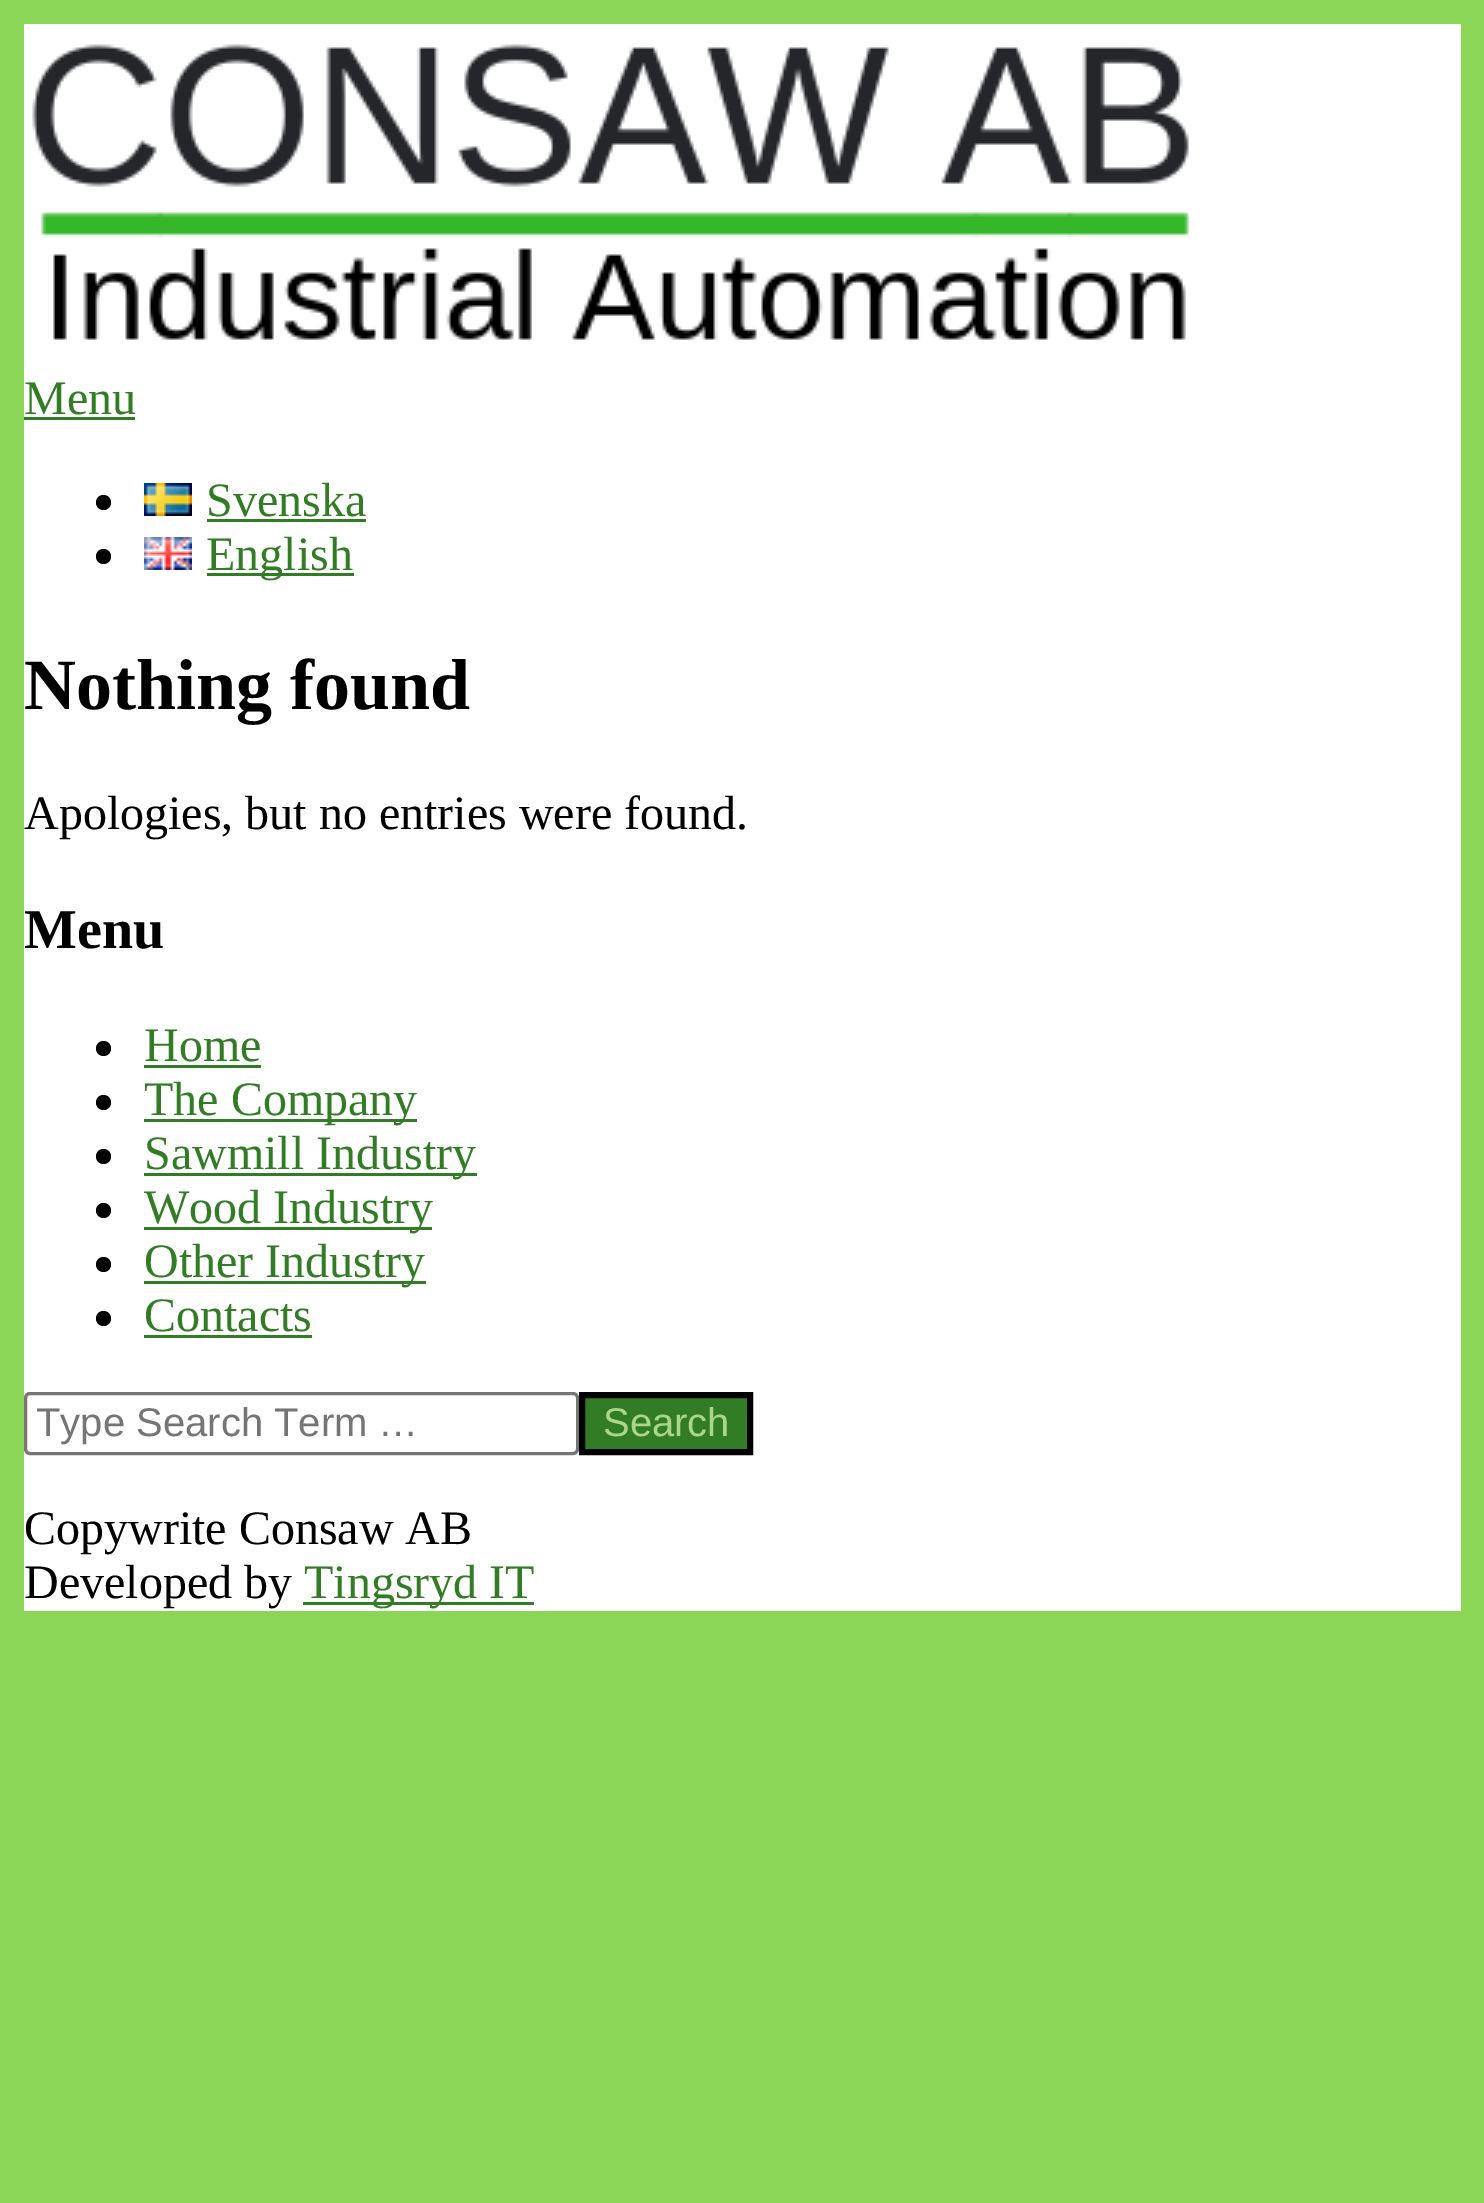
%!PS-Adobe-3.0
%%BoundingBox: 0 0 1484 2203
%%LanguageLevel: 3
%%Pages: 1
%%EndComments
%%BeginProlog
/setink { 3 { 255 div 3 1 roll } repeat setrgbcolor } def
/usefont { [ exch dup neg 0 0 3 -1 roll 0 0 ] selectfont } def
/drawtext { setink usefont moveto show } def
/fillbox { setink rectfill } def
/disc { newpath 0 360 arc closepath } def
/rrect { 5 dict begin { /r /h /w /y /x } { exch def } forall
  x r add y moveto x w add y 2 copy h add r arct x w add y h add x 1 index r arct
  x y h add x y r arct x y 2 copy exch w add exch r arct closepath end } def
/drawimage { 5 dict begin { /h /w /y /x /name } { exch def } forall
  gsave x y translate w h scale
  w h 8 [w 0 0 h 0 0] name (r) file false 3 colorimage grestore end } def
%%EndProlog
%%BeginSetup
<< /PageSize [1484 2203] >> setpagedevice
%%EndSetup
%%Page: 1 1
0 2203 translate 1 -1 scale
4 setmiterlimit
0 0 1484 2203 140 214 87 fillbox
24 24 1437 1587 255 255 255 fillbox
(assets/img1.rgb) 32 44 1157 296 drawimage
(Menu) 24 414 /LiberationSerif-Regular 48 51 124 38 drawtext
24 417 111 3 51 124 38 fillbox
0 0 0 setink
103.5 502.5 7.5 disc fill
(assets/img2.rgb) 144 483 48 33 drawimage
(Svenska) 206 516 /LiberationSerif-Regular 48 51 124 38 drawtext
207 519 159 3 51 124 38 fillbox
0 0 0 setink
103.5 556.5 7.5 disc fill
(assets/img3.rgb) 144 537 48 33 drawimage
207 573 147 3 51 124 38 fillbox
(English) 206 570 /LiberationSerif-Regular 48 51 124 38 drawtext
(Nothing found) 24 709 /LiberationSerif-Bold 72 0 0 0 drawtext
(Apologies, but no entries were found.) 24 829 /LiberationSerif-Regular 48 0 0 0 drawtext
(Menu) 24 948 /LiberationSerif-Bold 56 0 0 0 drawtext
103.5 1048.5 7.5 disc fill
(Home) 144 1061 /LiberationSerif-Regular 48 51 124 38 drawtext
144 1065 117 3 51 124 38 fillbox
0 0 0 setink
103.5 1102.5 7.5 disc fill
144 1119 273 3 51 124 38 fillbox
(The Company) 144 1115 /LiberationSerif-Regular 48 51 124 38 drawtext
0 0 0 setink
103.5 1156.5 7.5 disc fill
144 1173 333 3 51 124 38 fillbox
(Sawmill Industry) 144 1169 /LiberationSerif-Regular 48 51 124 38 drawtext
0 0 0 setink
103.5 1210.5 7.5 disc fill
144 1227 288 3 51 124 38 fillbox
(Wood Industry) 144 1223 /LiberationSerif-Regular 48 51 124 38 drawtext
0 0 0 setink
103.5 1264.5 7.5 disc fill
144 1281 282 3 51 124 38 fillbox
(Other Industry) 144 1277 /LiberationSerif-Regular 48 51 124 38 drawtext
0 0 0 setink
103.5 1318.5 7.5 disc fill
(Contacts) 144 1331 /LiberationSerif-Regular 48 51 124 38 drawtext
144 1335 168 3 51 124 38 fillbox
118 118 118 setink
3 setlinewidth
25.5 1393.5 552 60 4.5 rrect stroke
(Type Search Term …) 36 1436 /LiberationSans-Regular 40 117 117 117 drawtext
51 124 38 setink
582 1395 moveto 750 1395 lineto 750 1452 lineto 582 1452 lineto closepath gsave fill grestore
0 0 0 setink
6 setlinewidth
stroke
(Search) 603 1436 /LiberationSans-Regular 40 169 214 137 drawtext
(Copywrite Consaw AB) 24 1544 /LiberationSerif-Regular 48 0 0 0 drawtext
(Developed by) 24 1598 /LiberationSerif-Regular 48 0 0 0 drawtext
303 1602 231 3 51 124 38 fillbox
(Tingsryd IT) 304 1598 /LiberationSerif-Regular 48 51 124 38 drawtext
showpage
%%EOF
